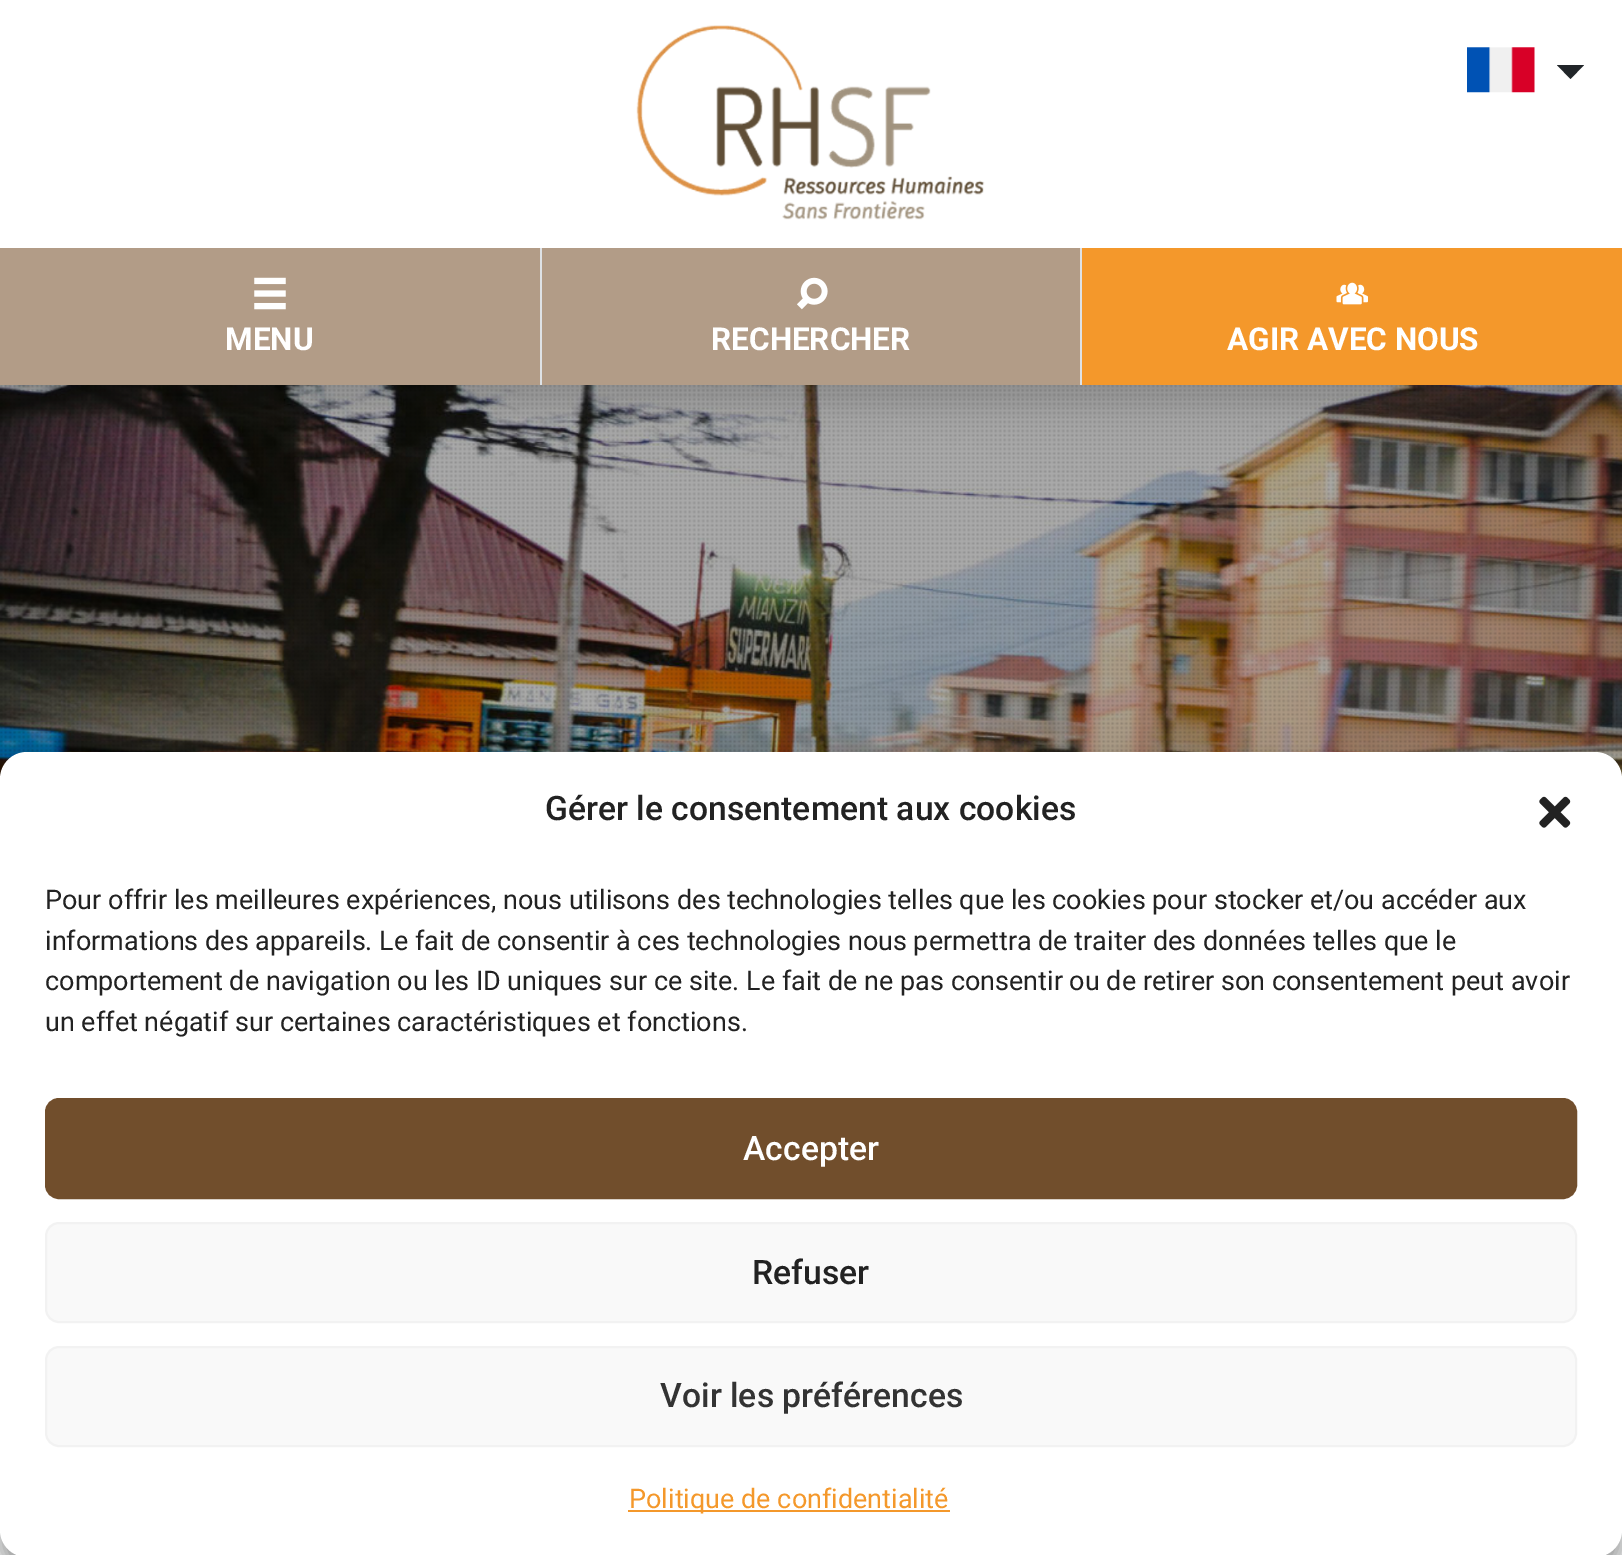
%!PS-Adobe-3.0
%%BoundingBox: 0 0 1622 1555
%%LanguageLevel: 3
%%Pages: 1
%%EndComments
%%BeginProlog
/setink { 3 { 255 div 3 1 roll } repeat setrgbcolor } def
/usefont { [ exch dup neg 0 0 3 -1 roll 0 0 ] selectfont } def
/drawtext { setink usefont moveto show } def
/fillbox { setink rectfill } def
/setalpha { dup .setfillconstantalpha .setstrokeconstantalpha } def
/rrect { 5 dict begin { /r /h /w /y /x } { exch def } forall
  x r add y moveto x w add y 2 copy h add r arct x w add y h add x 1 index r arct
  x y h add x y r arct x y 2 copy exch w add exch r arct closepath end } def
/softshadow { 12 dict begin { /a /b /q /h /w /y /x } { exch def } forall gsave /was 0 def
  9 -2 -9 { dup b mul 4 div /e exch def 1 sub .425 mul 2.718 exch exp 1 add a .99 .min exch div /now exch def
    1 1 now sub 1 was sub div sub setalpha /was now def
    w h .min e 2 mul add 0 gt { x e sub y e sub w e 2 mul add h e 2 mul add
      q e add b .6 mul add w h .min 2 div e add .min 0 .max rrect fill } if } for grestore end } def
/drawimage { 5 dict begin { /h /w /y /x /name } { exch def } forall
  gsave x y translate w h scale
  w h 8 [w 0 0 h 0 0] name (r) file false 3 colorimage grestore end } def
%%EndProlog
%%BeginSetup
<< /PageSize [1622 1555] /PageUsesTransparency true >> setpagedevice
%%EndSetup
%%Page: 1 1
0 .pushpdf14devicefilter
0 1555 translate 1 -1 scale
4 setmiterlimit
0 0 1622 1555 255 255 255 fillbox
(assets/img6.rgb) 0 385 1622 394 drawimage
(assets/img7.rgb) 0 385 1622 394 drawimage
0 0 0 setink
0 18 1622 385 0 18 0.15 softshadow
0 0 1622 248 255 255 255 fillbox
(assets/img1.rgb) 636 25 349 195 drawimage
(assets/img2.rgb) 1467 47 68 46 drawimage
33 37 41 setink
1557 65 moveto 1584 65 lineto 1570.5 79 lineto closepath fill
0 248 1080 137 178 156 135 fillbox
540 248 2 137 222 226 230 fillbox
(assets/img3.rgb) 254 277 32 33 drawimage
(MENU) 225 350 /Roboto-Bold 31.5 255 255 255 drawtext
1080 248 2 137 222 226 230 fillbox
(assets/img4.rgb) 797 277 31 33 drawimage
(RECHERCHER) 711 350 /Roboto-Bold 31.5 255 255 255 drawtext
1082 248 540 137 244 152 43 fillbox
(assets/img5.rgb) 1336 282 32 23 drawimage
(AGIR AVEC NOUS) 1227 350 /Roboto-Bold 31.5 255 255 255 drawtext
0 1530 1622 25 248 249 250 fillbox
0 0 0 setink
0 765 1622 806 27 7 0.23 softshadow
0 774 1622 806 27 22.5 0.19 softshadow
255 255 255 setink
0 752 1622 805 27 rrect fill
(Gérer le consentement aux cookies) 545 820 /Roboto-Medium 33.75 34 34 34 drawtext
(assets/img8.rgb) 1539 796 32 32 drawimage
(Pour offrir les meilleures expériences, nous utilisons des technologies telles que les cookies pour stocker et/ou accéder aux) 45 909 /Roboto-Regular 27 34 34 34 drawtext
(informations des appareils. Le fait de consentir à ces technologies nous permettra de traiter des données telles que le) 45 950 /Roboto-Regular 27 34 34 34 drawtext
(comportement de navigation ou les ID uniques sur ce site. Le fait de ne pas consentir ou de retirer son consentement peut avoir) 45 990 /Roboto-Regular 27 34 34 34 drawtext
(un effet négatif sur certaines caractéristiques et fonctions.) 45 1031 /Roboto-Regular 27 34 34 34 drawtext
113 78 44 setink
46 1099 1530 99 13 rrect gsave fill grestore
2 setlinewidth
stroke
(Accepter) 743 1160 /Roboto-Medium 33.75 255 255 255 drawtext
249 249 249 setink
46 1223 1530 99 13 rrect gsave fill grestore
242 242 242 setink
stroke
(Refuser) 752 1284 /Roboto-Medium 33.75 34 34 34 drawtext
249 249 249 setink
46 1347 1530 99 13 rrect gsave fill grestore
242 242 242 setink
stroke
(Voir les préférences) 660 1407 /Roboto-Medium 33.75 51 51 51 drawtext
628 1510 322 2 244 152 43 fillbox
(Politique de confidentialité) 629 1508 /Roboto-Regular 27 244 152 43 drawtext
.poppdf14devicefilter showpage
%%EOF
